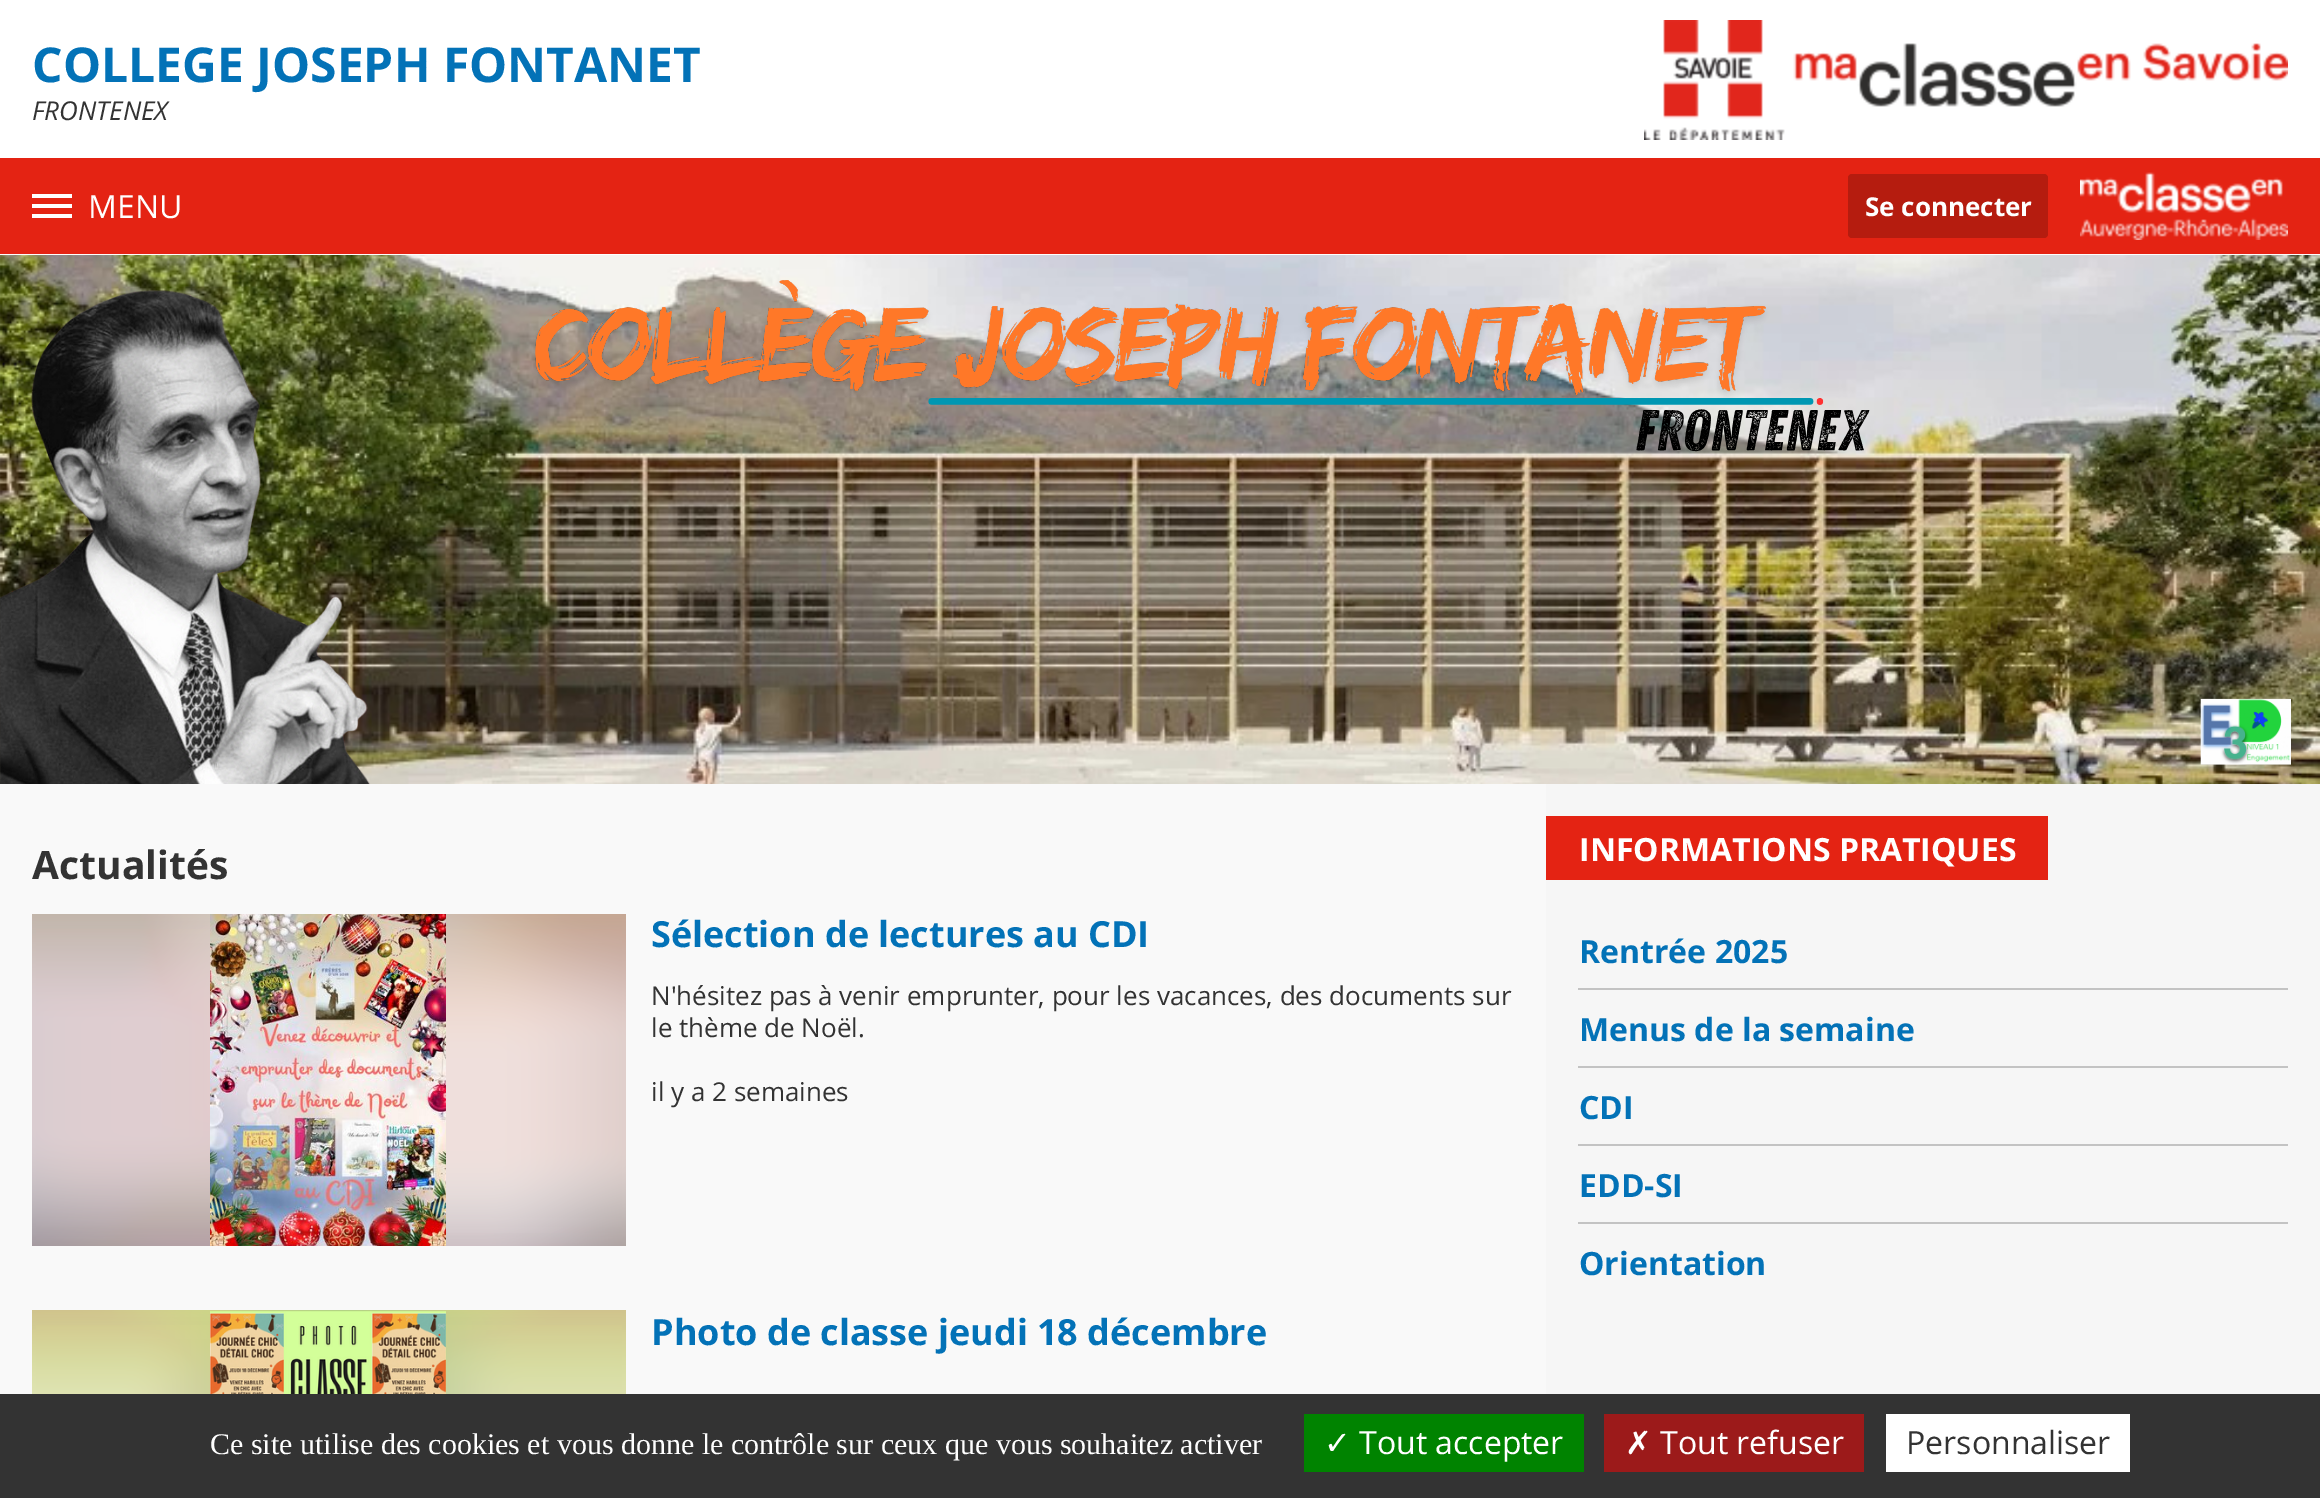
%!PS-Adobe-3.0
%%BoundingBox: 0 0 2320 1498
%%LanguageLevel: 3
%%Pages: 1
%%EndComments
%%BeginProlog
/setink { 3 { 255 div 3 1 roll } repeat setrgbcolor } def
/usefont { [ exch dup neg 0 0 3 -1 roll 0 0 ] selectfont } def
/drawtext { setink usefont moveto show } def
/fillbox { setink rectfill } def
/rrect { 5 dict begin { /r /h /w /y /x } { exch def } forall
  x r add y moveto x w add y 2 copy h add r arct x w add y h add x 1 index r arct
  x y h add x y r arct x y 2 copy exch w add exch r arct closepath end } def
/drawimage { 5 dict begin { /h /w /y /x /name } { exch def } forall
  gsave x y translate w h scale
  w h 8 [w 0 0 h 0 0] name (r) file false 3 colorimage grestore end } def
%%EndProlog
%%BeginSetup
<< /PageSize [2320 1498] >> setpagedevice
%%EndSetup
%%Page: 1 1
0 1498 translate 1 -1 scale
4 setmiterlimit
0 0 2320 1498 255 255 255 fillbox
(COLLEGE JOSEPH FONTANET) 32 82 /OpenSans-Bold 48 3 114 183 drawtext
(FRONTENEX) 32 120 /OpenSans-Italic 26 51 51 51 drawtext
(assets/img1.rgb) 1644 20 644 120 drawimage
0 158 2320 96 228 35 19 fillbox
(assets/img2.rgb) 2080 172 208 68 drawimage
32 194 40 4 255 255 255 fillbox
32 204 40 4 255 255 255 fillbox
32 214 40 4 255 255 255 fillbox
(MENU) 88 218 /OpenSans-Regular 32 255 255 255 drawtext
181 28 15 setink
1848 174 200 64 4 rrect fill
(Se connecter) 1865 216 /OpenSans-Bold 26 255 255 255 drawtext
0 784 1546 610 249 249 249 fillbox
(assets/img3.rgb) 0 255 2320 529 drawimage
(Actualités) 32 879 /OpenSans-Bold 39 51 51 51 drawtext
(assets/img4.rgb) 32 914 594 332 drawimage
(assets/img5.rgb) 210 914 236 332 drawimage
(Sélection de lectures au CDI) 651 947 /OpenSans-Bold 36 3 114 183 drawtext
(N'hésitez pas à venir emprunter, pour les vacances, des documents sur) 651 1005 /OpenSans-Regular 26 51 51 51 drawtext
(le thème de Noël.) 651 1037 /OpenSans-Regular 26 51 51 51 drawtext
(il y a 2 semaines) 651 1101 /OpenSans-Regular 26 51 51 51 drawtext
(assets/img6.rgb) 32 1310 594 84 drawimage
(assets/img7.rgb) 210 1311 236 83 drawimage
(Photo de classe jeudi 18 décembre) 651 1345 /OpenSans-Bold 36 3 114 183 drawtext
1546 784 774 610 246 246 246 fillbox
1546 816 502 64 228 35 19 fillbox
(INFORMATIONS PRATIQUES) 1579 861 /OpenSans-Bold 32 255 255 255 drawtext
1578 988 710 2 195 195 195 fillbox
(Rentrée 2025) 1579 963 /OpenSans-Bold 32 3 114 183 drawtext
1578 1066 710 2 195 195 195 fillbox
(Menus de la semaine) 1579 1041 /OpenSans-Bold 32 3 114 183 drawtext
1578 1144 710 2 195 195 195 fillbox
(CDI) 1579 1119 /OpenSans-Bold 32 3 114 183 drawtext
1578 1222 710 2 195 195 195 fillbox
(EDD-SI) 1579 1197 /OpenSans-Bold 32 3 114 183 drawtext
(Orientation) 1579 1275 /OpenSans-Bold 32 3 114 183 drawtext
0 1394 2320 104 51 51 51 fillbox
(Ce site utilise des cookies et vous donne le contrôle sur ceux que vous souhaitez activer) 210 1454 /LiberationSerif-Regular 30 255 255 255 drawtext
1304 1414 280 58 0 131 0 fillbox
(✓) 1324 1454 /DejaVuSans-Regular 32 255 255 255 drawtext
(Tout accepter) 1359 1454 /OpenSans-Regular 32 255 255 255 drawtext
1604 1414 260 58 156 26 26 fillbox
(✗) 1625 1454 /DejaVuSans-Regular 32 255 255 255 drawtext
(Tout refuser) 1660 1454 /OpenSans-Regular 32 255 255 255 drawtext
1886 1414 244 58 255 255 255 fillbox
(Personnaliser) 1906 1454 /OpenSans-Regular 32 51 51 51 drawtext
showpage
%%EOF
